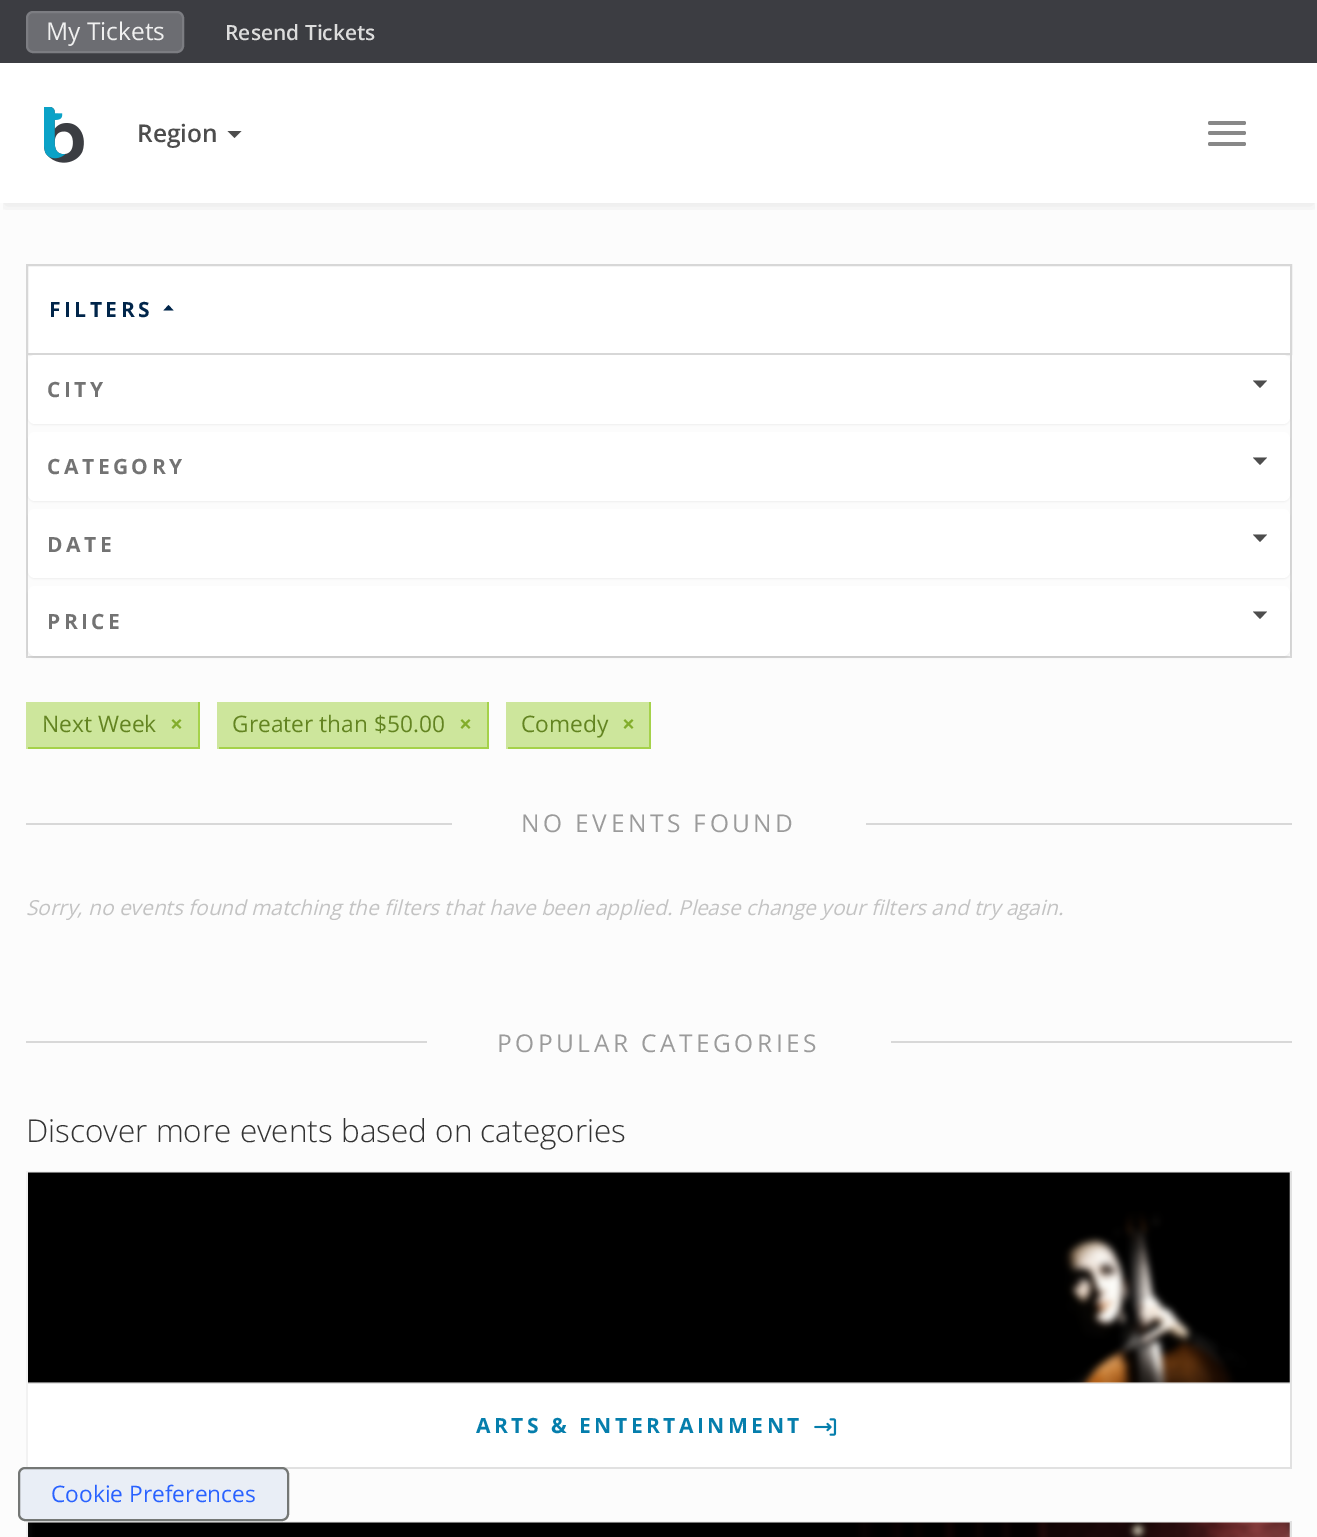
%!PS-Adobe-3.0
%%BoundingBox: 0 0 1317 1537
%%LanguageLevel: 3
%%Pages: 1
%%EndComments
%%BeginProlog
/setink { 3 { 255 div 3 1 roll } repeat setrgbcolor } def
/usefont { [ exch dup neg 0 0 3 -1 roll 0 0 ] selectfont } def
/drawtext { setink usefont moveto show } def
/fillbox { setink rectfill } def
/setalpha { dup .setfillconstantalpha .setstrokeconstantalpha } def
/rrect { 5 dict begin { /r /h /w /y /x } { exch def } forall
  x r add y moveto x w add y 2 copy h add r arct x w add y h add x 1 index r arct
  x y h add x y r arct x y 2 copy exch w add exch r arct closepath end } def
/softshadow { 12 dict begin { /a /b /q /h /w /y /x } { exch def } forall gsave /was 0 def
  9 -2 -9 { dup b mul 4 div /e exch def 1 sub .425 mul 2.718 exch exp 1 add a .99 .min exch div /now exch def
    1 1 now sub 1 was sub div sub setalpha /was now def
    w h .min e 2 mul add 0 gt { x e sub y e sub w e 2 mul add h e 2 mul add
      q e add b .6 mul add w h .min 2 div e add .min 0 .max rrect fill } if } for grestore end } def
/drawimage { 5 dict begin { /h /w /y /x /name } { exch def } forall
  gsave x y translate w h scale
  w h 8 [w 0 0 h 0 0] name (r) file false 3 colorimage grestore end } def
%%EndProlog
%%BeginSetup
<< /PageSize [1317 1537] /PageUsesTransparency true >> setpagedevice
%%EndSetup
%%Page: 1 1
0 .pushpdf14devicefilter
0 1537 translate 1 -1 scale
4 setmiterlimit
0 0 1317 1537 255 255 255 fillbox
0 203 1317 1334 252 252 252 fillbox
gsave
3 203 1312 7 rectclip
15 15 15 setink
5 75 1308 130 0 7 0.09 softshadow
grestore
0 0 1317 63 60 61 66 fillbox
108 109 114 setink
27 12 156 40 6 rrect gsave fill grestore
124 125 130 setink
2 setlinewidth
stroke
(My Tickets) 46 40 /OpenSans-Regular 24.5 240 240 240 drawtext
(Resend Tickets) 225 40 /OpenSans-SemiBold 21 221 221 221 drawtext
(assets/img1.rgb) 44 107 40 56 drawimage
(Region) 137 142 /OpenSans-SemiBold 24.5 77 77 77 drawtext
227.5 131 moveto 241.5 131 lineto 234.5 138 lineto closepath fill
136 136 136 setink
1208 121 38 4 2 rrect fill
1208 131 38 4 2 rrect fill
1208 142 38 4 2 rrect fill
255 255 255 setink
27 265 moveto 1291 265 lineto 1291 354 lineto 27 354 lineto closepath gsave fill grestore
215 215 215 setink
stroke
/OpenSans-Bold 21 usefont
0 37 74 setink
49 317 moveto 3.5 0 (FILTERS) ashow
163.5 310.5 moveto 173.5 310.5 lineto 168.5 305 lineto closepath fill
1290 355 2 303 215 215 215 fillbox
26 656 1266 2 215 215 215 fillbox
26 355 2 303 215 215 215 fillbox
0 0 0 setink
28 357 1262 68 7 1 0.05 softshadow
255 255 255 setink
28 355 1262 69 7 rrect fill
115 115 115 setink
47 397 moveto 3.5 0 (CITY) ashow
77 77 77 setink
1253 380.5 moveto 1267 380.5 lineto 1260 388 lineto closepath fill
0 0 0 setink
28 434 1262 68 7 1 0.05 softshadow
255 255 255 setink
28 432 1262 69 7 rrect fill
115 115 115 setink
47 474 moveto 3.5 0 (CATEGORY) ashow
77 77 77 setink
1253 457.5 moveto 1267 457.5 lineto 1260 465 lineto closepath fill
0 0 0 setink
28 511 1262 68 7 1 0.05 softshadow
255 255 255 setink
28 509 1262 69 7 rrect fill
115 115 115 setink
47 552 moveto 3.5 0 (DATE) ashow
77 77 77 setink
1253 534.5 moveto 1267 534.5 lineto 1260 542 lineto closepath fill
0 0 0 setink
28 588 1262 70 7 1 0.05 softshadow
255 255 255 setink
28 586 1262 70 7 rrect fill
115 115 115 setink
47 629 moveto 3.5 0 (PRICE) ashow
77 77 77 setink
1253 611.5 moveto 1267 611.5 lineto 1260 619 lineto closepath fill
28 702 170 45 205 230 156 fillbox
198 702 2 47 165 210 74 fillbox
26 747 174 2 165 210 74 fillbox
26 702 2 47 205 230 156 fillbox
(Next Week) 42 732 /OpenSans-Regular 22.75 99 132 33 drawtext
(×) 170 732 /OpenSans-Bold 22.75 130 173 43 drawtext
219 702 268 45 205 230 156 fillbox
487 702 2 47 165 210 74 fillbox
217 747 271 2 165 210 74 fillbox
217 702 2 47 205 230 156 fillbox
(Greater than $50.00) 232 732 /OpenSans-Regular 22.75 99 132 33 drawtext
(×) 459 732 /OpenSans-Bold 22.75 130 173 43 drawtext
508 702 141 45 205 230 156 fillbox
649 702 2 47 165 210 74 fillbox
506 747 145 2 165 210 74 fillbox
506 702 2 47 205 230 156 fillbox
(Comedy) 521 732 /OpenSans-Regular 22.75 99 132 33 drawtext
(×) 622 732 /OpenSans-Bold 22.75 130 173 43 drawtext
26 823 426 2 216 216 216 fillbox
/OpenSans-Regular 24.5 usefont
155 155 155 setink
521 832 moveto 3.5 0 (NO EVENTS FOUND) ashow
866 823 426 2 216 216 216 fillbox
(Sorry, no events found matching the filters that have been applied.) 26 915 /OpenSans-Italic 20.8 195 195 195 drawtext
(Please change your filters and try again.) 678 915 /OpenSans-Italic 20.8 195 195 195 drawtext
26 1041 401 2 216 216 216 fillbox
/OpenSans-Regular 24.5 usefont
155 155 155 setink
497 1052 moveto 3.5 0 (POPULAR CATEGORIES) ashow
891 1041 401 2 216 216 216 fillbox
(Discover more events based on categories) 26 1142 /OpenSans-Light 31.5 51 51 51 drawtext
26 1171 1266 2 242 242 242 fillbox
1290 1171 2 297 225 225 225 fillbox
282 1467 1010 2 225 225 225 fillbox
26 1171 2 297 242 242 242 fillbox
28 1173 1262 210 248 248 248 fillbox
(assets/img2.rgb) 28 1172 1262 211 drawimage
28 1383 1262 1 225 225 225 fillbox
28 1384 1262 83 255 255 255 fillbox
/OpenSans-Bold 21 usefont
5 126 172 setink
476 1433 moveto 3.5 0 (ARTS & ENTERTAINMENT) ashow
(assets/img3.rgb) 814 1418 23 18 drawimage
26 1521 1266 2 242 242 242 fillbox
1290 1521 2 16 225 225 225 fillbox
26 1521 2 16 242 242 242 fillbox
(assets/img4.rgb) 28 1522 1262 15 drawimage
233 238 246 setink
19 1468 269 52 6 rrect gsave fill grestore
116 119 117 setink
stroke
(Cookie Preferences) 51 1502 /OpenSans-Regular 22.75 41 98 255 drawtext
.poppdf14devicefilter showpage
%%EOF
